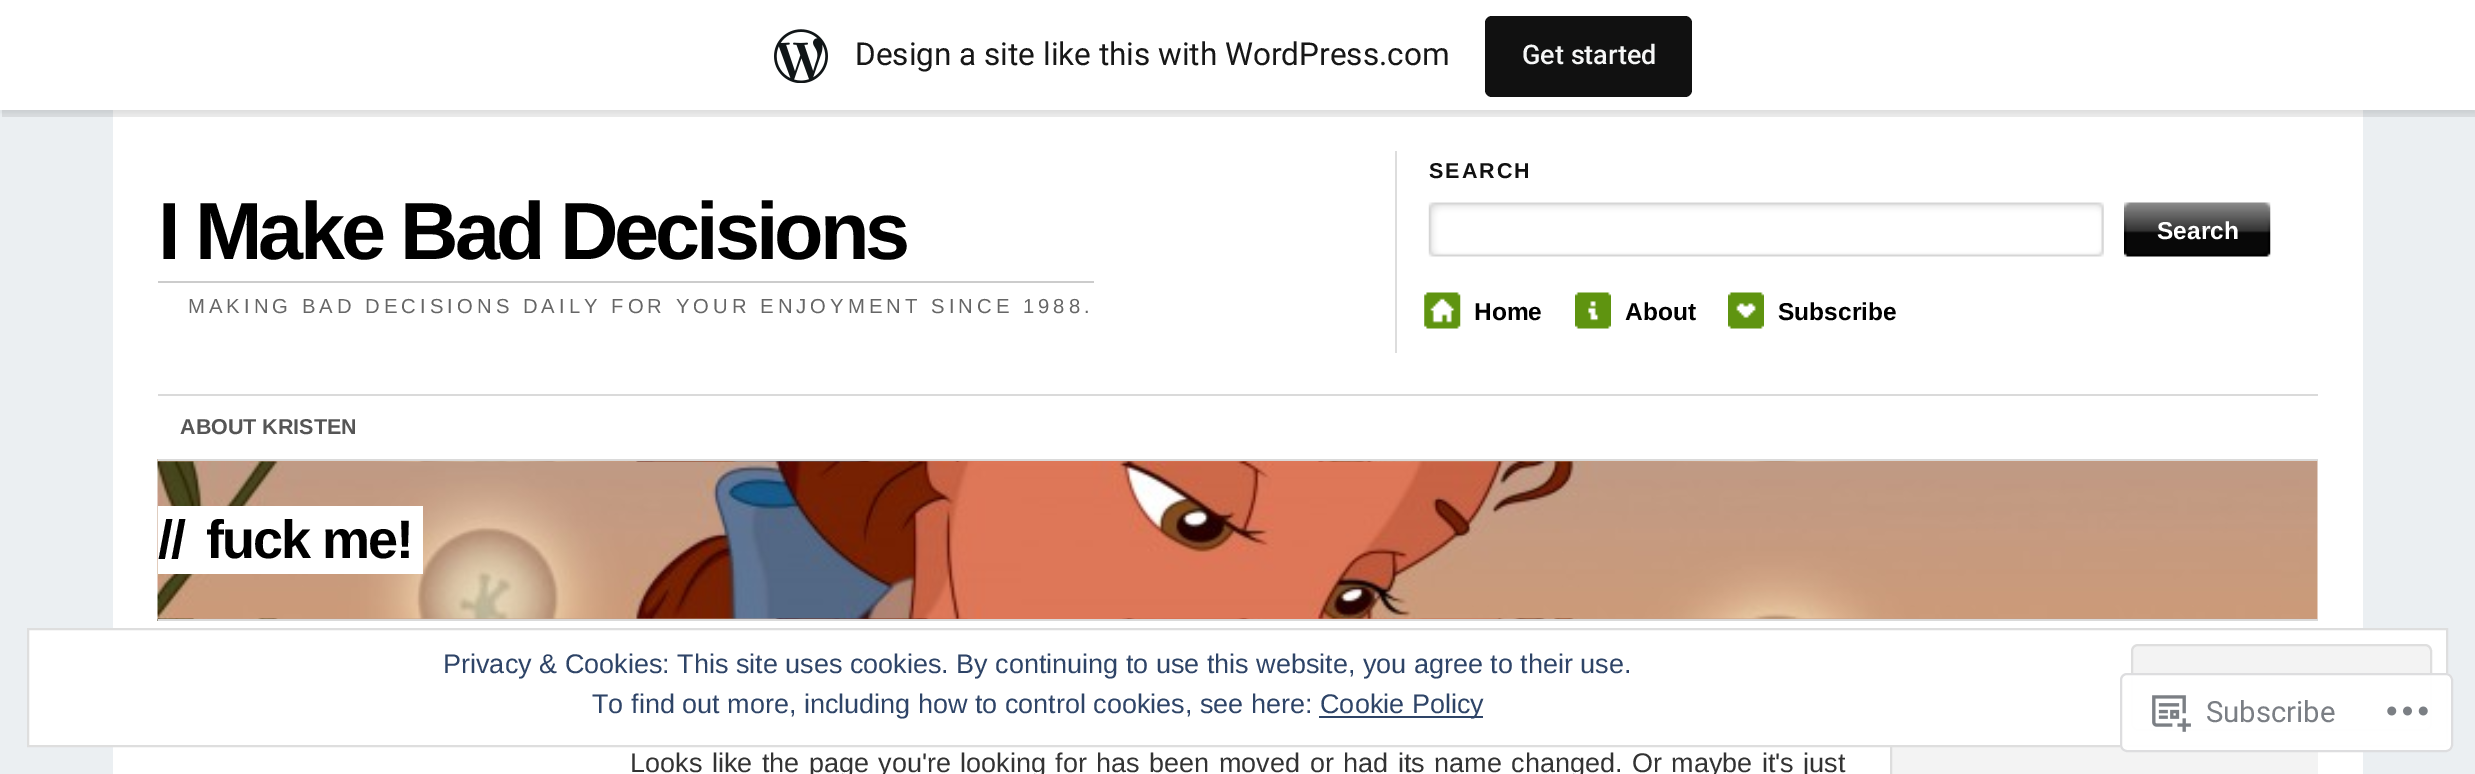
%!PS-Adobe-3.0
%%BoundingBox: 0 0 2475 774
%%LanguageLevel: 3
%%Pages: 1
%%EndComments
%%BeginProlog
/setink { 3 { 255 div 3 1 roll } repeat setrgbcolor } def
/usefont { [ exch dup neg 0 0 3 -1 roll 0 0 ] selectfont } def
/drawtext { setink usefont moveto show } def
/fillbox { setink rectfill } def
/setalpha { dup .setfillconstantalpha .setstrokeconstantalpha } def
/rrect { 5 dict begin { /r /h /w /y /x } { exch def } forall
  x r add y moveto x w add y 2 copy h add r arct x w add y h add x 1 index r arct
  x y h add x y r arct x y 2 copy exch w add exch r arct closepath end } def
/softshadow { 12 dict begin { /a /b /q /h /w /y /x } { exch def } forall gsave /was 0 def
  9 -2 -9 { dup b mul 4 div /e exch def 1 sub .425 mul 2.718 exch exp 1 add a .99 .min exch div /now exch def
    1 1 now sub 1 was sub div sub setalpha /was now def
    w h .min e 2 mul add 0 gt { x e sub y e sub w e 2 mul add h e 2 mul add
      q e add b .6 mul add w h .min 2 div e add .min 0 .max rrect fill } if } for grestore end } def
/drawimage { 5 dict begin { /h /w /y /x /name } { exch def } forall
  gsave x y translate w h scale
  w h 8 [w 0 0 h 0 0] name (r) file false 3 colorimage grestore end } def
%%EndProlog
%%BeginSetup
<< /PageSize [2475 774] /PageUsesTransparency true >> setpagedevice
%%EndSetup
%%Page: 1 1
0 .pushpdf14devicefilter
0 774 translate 1 -1 scale
4 setmiterlimit
0 0 2475 774 235 239 242 fillbox
113 110 2250 664 255 255 255 fillbox
0 0 0 setink
0 2 2475 111 0 2 0.05 softshadow
0.08 setalpha
2 110 moveto 2 117 lineto 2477 117 lineto 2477 7 lineto 2475 7 lineto 2475 110 lineto closepath fill
1 setalpha
0 0 2475 110 255 255 255 fillbox
(assets/img1.rgb) 774 29 54 54 drawimage
(Design a site like this with WordPress.com) 855 65 /Roboto-Regular 31.5 23 23 23 drawtext
17 17 17 setink
1485 16 207 81 7 rrect fill
(Get started) 1522 64 /Roboto-Medium 27 246 247 247 drawtext
/LiberationSans-Bold 81 usefont
0 0 0 setink
158 259 moveto -4 0 (I Make Bad Decisions) ashow
158 281 936 2 204 204 204 fillbox
/LiberationSans-Regular 20.25 usefont
102 102 102 setink
188 313 moveto 4.05 0 (MAKING BAD DECISIONS DAILY FOR YOUR ENJOYMENT SINCE 1988.) ashow
1395 151 2 202 221 221 221 fillbox
/LiberationSans-Bold 21.5 usefont
17 17 17 setink
1429 178 moveto 2 0 (SEARCH) ashow
(assets/img2.rgb) 1428 202 676 55 drawimage
(assets/img3.rgb) 2124 202 147 55 drawimage
(Search) 2157 239 /LiberationSans-Bold 24.5 255 255 255 drawtext
(assets/img4.rgb) 1424 292 37 37 drawimage
(Home) 1474 320 /LiberationSans-Bold 24.5 0 0 0 drawtext
(assets/img5.rgb) 1575 292 36 37 drawimage
(About) 1625 320 /LiberationSans-Bold 24.5 0 0 0 drawtext
(assets/img6.rgb) 1728 292 36 37 drawimage
(Subscribe) 1778 320 /LiberationSans-Bold 24.5 0 0 0 drawtext
158 394 2160 2 218 218 218 fillbox
(ABOUT KRISTEN) 180 434 /LiberationSans-Bold 21.5 85 85 85 drawtext
(assets/img7.rgb) 157 459 2161 162 drawimage
158 459 2160 2 218 218 218 fillbox
158 619 2160 2 218 218 218 fillbox
158 506 265 68 255 255 255 fillbox
/LiberationSans-Bold 54 usefont
0 0 0 setink
158 558 moveto -2 0 (//) ashow
206 558 moveto -2 0 (fuck me!) ashow
/LiberationSans-Regular 27 usefont
51 51 51 setink
630 772 moveto 2 0 32 (Looks like the page you're looking for has been moved or had its name changed. Or maybe it's just) widthshow
gsave
1890 662 428 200 rectclip
243 243 243 setink
1891 714 428 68 6 rrect gsave fill grestore
221 221 221 setink
2 setlinewidth
stroke
grestore
255 255 255 setink
28 629 moveto 2447 629 lineto 2447 746 lineto 28 746 lineto closepath gsave fill grestore
222 222 222 setink
2 setlinewidth
stroke
(Privacy & Cookies: This site uses cookies. By continuing to use this website, you agree to their use.) 443 673 /LiberationSans-Regular 27 46 68 103 drawtext
243 243 243 setink
2132 645 299 85 6 rrect gsave fill grestore
222 222 222 setink
stroke
(To find out more, including how to control cookies, see here:) 592 713 /LiberationSans-Regular 27 46 68 103 drawtext
1319 716 164 2 46 68 103 fillbox
(Cookie Policy) 1320 713 /LiberationSans-Regular 27 46 68 103 drawtext
0.98 setalpha
255 255 255 setink
2120 673 333 79 7 rrect fill
220 220 222 setink
2121 674 331 77 6 rrect stroke
1 setalpha
(assets/img8.rgb) 2152 695 39 37 drawimage
(Subscribe) 2206 722 /Roboto-Regular 29.25 122 126 132 drawtext
(assets/img9.rgb) 2387 706 41 10 drawimage
.poppdf14devicefilter showpage
%%EOF
